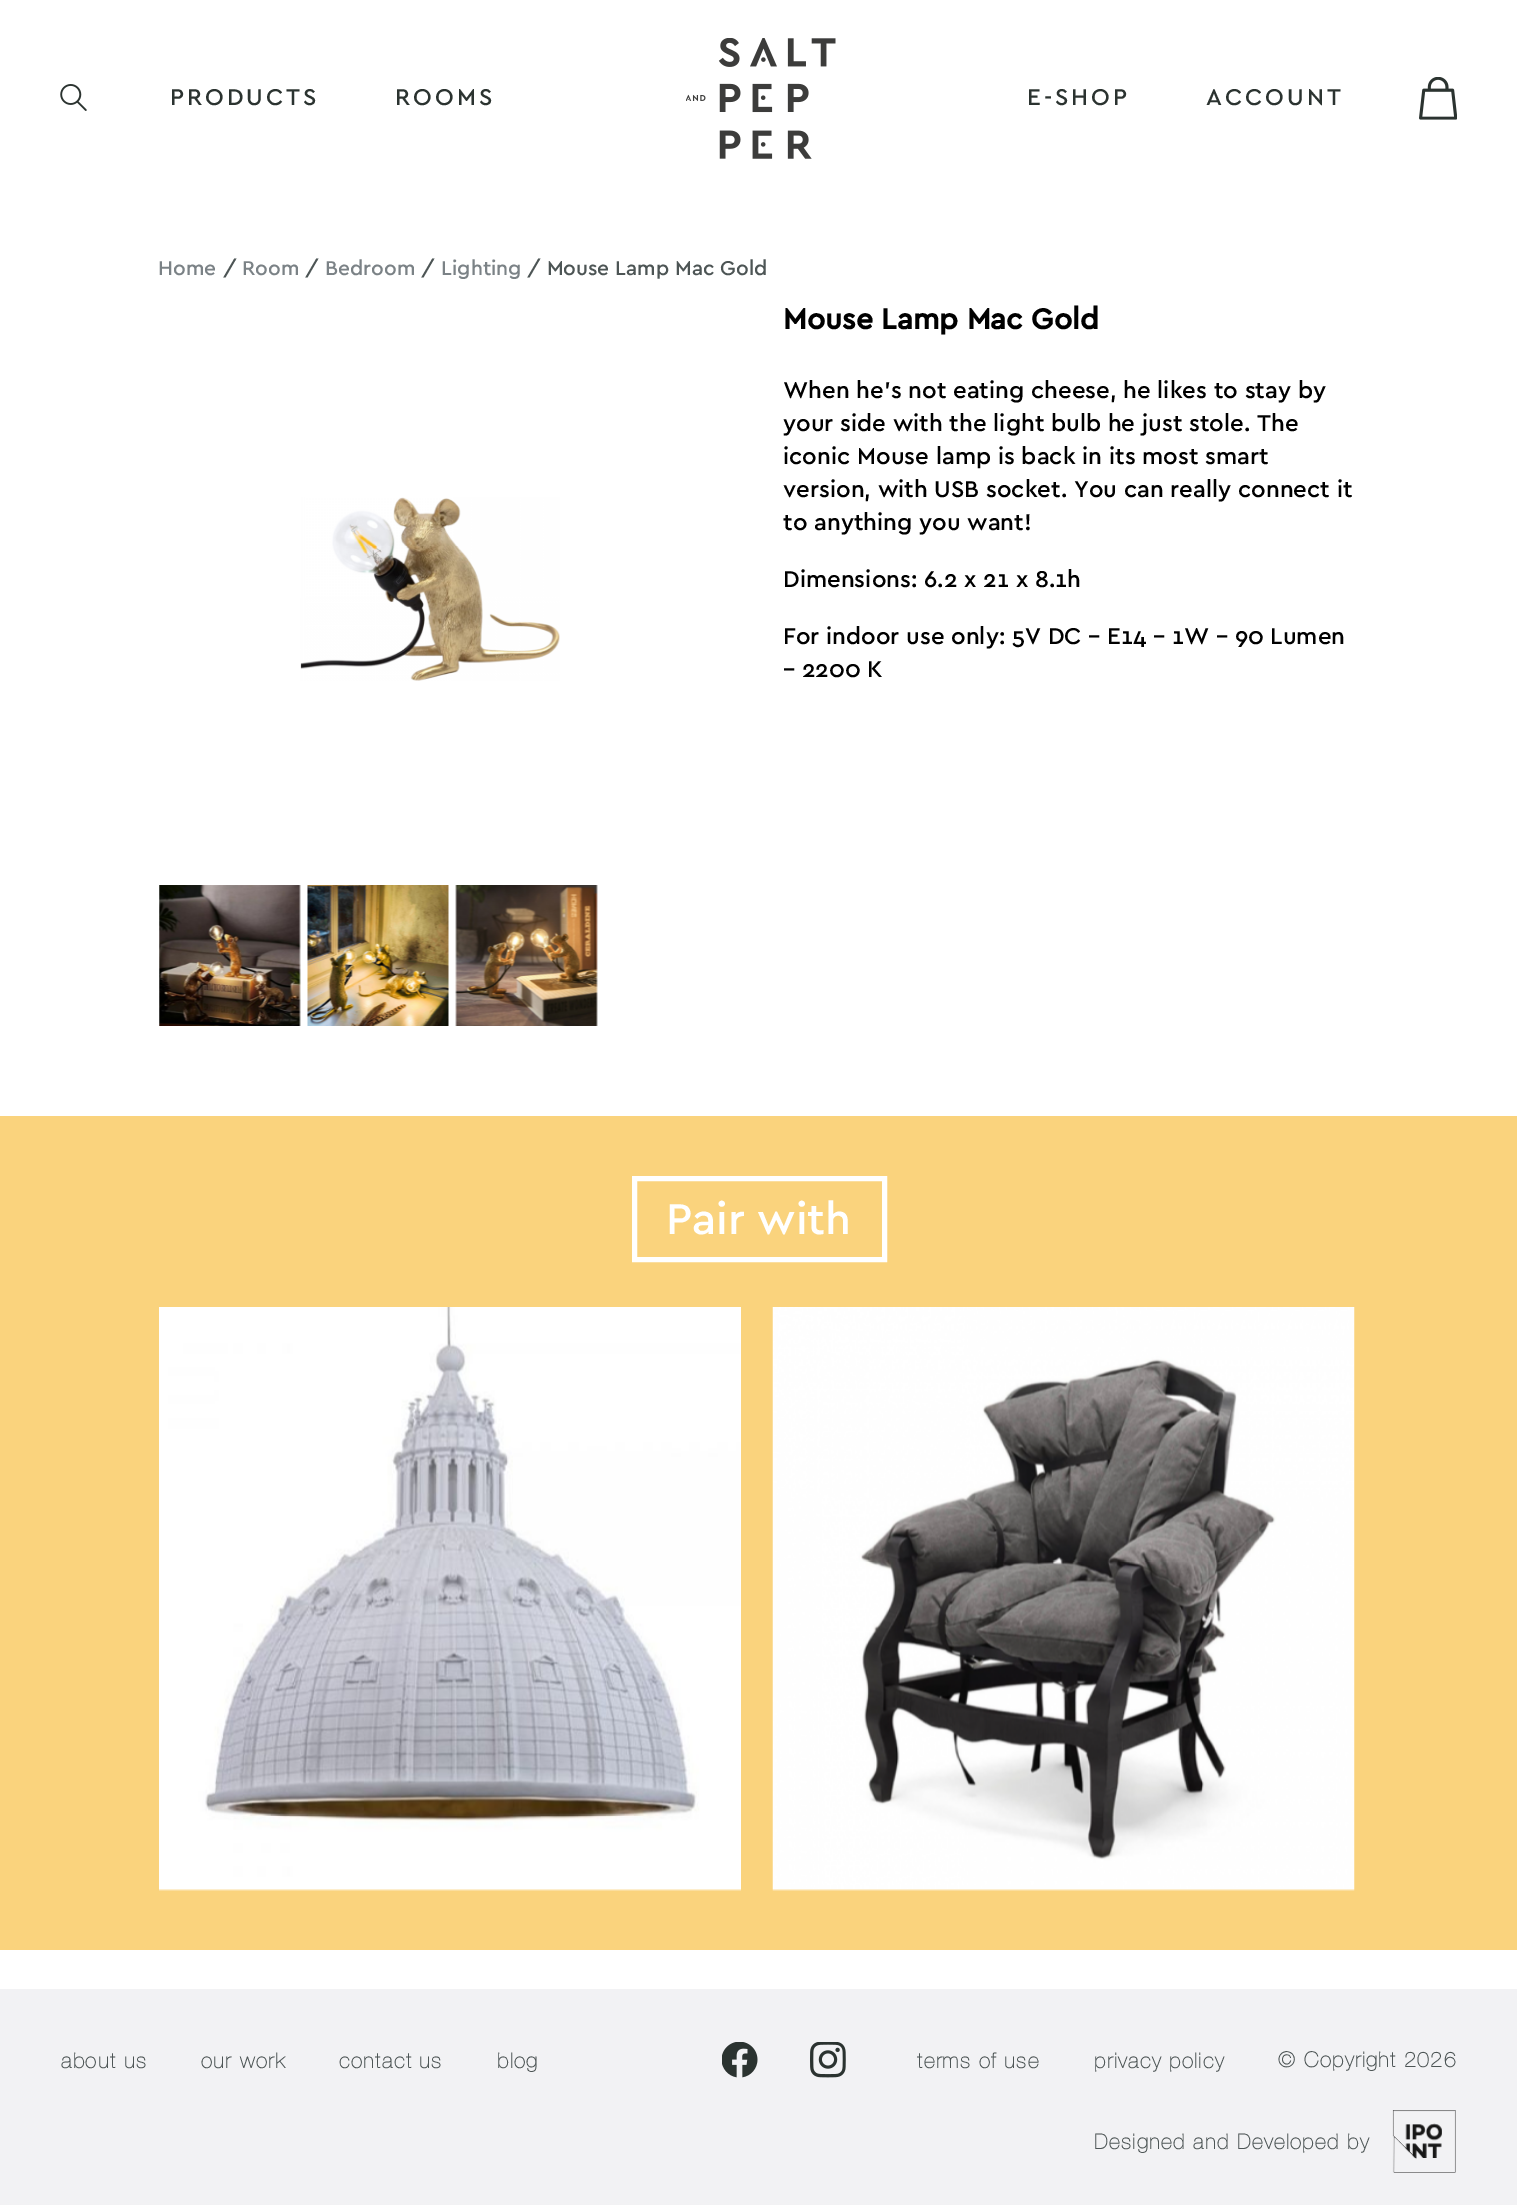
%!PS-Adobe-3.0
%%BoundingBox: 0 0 1517 2206
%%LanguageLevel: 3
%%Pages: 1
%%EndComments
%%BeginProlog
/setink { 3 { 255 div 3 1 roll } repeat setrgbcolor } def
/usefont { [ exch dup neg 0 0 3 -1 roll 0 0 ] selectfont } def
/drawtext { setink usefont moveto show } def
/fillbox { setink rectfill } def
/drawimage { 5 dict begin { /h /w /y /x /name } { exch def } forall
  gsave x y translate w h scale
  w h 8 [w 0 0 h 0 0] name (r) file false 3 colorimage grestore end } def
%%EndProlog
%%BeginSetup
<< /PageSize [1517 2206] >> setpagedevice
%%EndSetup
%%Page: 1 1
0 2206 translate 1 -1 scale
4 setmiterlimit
0 0 1517 2206 255 255 255 fillbox
(assets/img1.rgb) 60 84 27 27 drawimage
/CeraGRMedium-Medium 24 usefont
43 51 48 setink
170 105 moveto 3 0 (PRODUCTS) ashow
395 105 moveto 3 0 (ROOMS) ashow
(assets/img2.rgb) 686 38 150 121 drawimage
1027 105 moveto 3 0 (E-SHOP) ashow
1206 105 moveto 3 0 (ACCOUNT) ashow
(assets/img3.rgb) 1419 77 38 43 drawimage
(Home) 158 275 /CeraGRMedium-Medium 21 123 130 134 drawtext
(/) 223 275 /CeraGRMedium-Medium 21 77 85 85 drawtext
(Room) 242 275 /CeraGRMedium-Medium 21 123 130 134 drawtext
(/) 305 275 /CeraGRMedium-Medium 21 77 85 85 drawtext
(Bedroom) 325 275 /CeraGRMedium-Medium 21 123 130 134 drawtext
(/) 421 275 /CeraGRMedium-Medium 21 77 85 85 drawtext
(Lighting) 441 275 /CeraGRMedium-Medium 21 123 130 134 drawtext
(/ Mouse Lamp Mac Gold) 527 275 /CeraGRMedium-Medium 21 77 85 85 drawtext
(assets/img4.rgb) 300 497 260 184 drawimage
(assets/img5.rgb) 159 885 142 141 drawimage
(assets/img6.rgb) 307 885 142 141 drawimage
(assets/img7.rgb) 455 885 143 141 drawimage
(Mouse Lamp Mac Gold) 783 329 /CeraGRMedium-Bold 30 0 0 0 drawtext
(When he’s not eating cheese, he likes to stay by) 783 398 /CeraGRMedium-Medium 24 0 0 0 drawtext
(your side with the light bulb he just stole. The) 783 431 /CeraGRMedium-Medium 24 0 0 0 drawtext
(iconic Mouse lamp is back in its most smart) 783 464 /CeraGRMedium-Medium 24 0 0 0 drawtext
(version, with USB socket. You can really connect it) 783 497 /CeraGRMedium-Medium 24 0 0 0 drawtext
(to anything you want!) 783 530 /CeraGRMedium-Medium 24 0 0 0 drawtext
(Dimensions: 6.2 x 21 x 8.1h) 783 587 /CeraGRMedium-Medium 24 0 0 0 drawtext
(For indoor use only: 5V DC – E14 – 1W – 90 Lumen) 783 644 /CeraGRMedium-Medium 24 0 0 0 drawtext
(– 2200 K) 783 677 /CeraGRMedium-Medium 24 0 0 0 drawtext
0 1116 1517 834 250 211 125 fillbox
255 255 255 setink
5 setlinewidth
634.5 1178.5 250 81 rectstroke
(Pair with) 666 1234 /CeraGRMedium-Medium 45 255 255 255 drawtext
(assets/img8.rgb) 159 1307 582 584 drawimage
(assets/img9.rgb) 772 1307 583 584 drawimage
0 1989 1517 216 242 242 244 fillbox
/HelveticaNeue-Bold 21 usefont
77 85 85 setink
61 2068 moveto 1.5 0 (about us) ashow
201 2068 moveto 1.5 0 (our work) ashow
339 2068 moveto 1.5 0 (contact us) ashow
497 2068 moveto 1.5 0 (blog) ashow
(assets/img10.rgb) 722 2042 36 36 drawimage
(assets/img11.rgb) 810 2042 36 36 drawimage
917 2068 moveto 1.5 0 (terms of use) ashow
1094 2068 moveto 1.5 0 (privacy policy) ashow
1278 2067 moveto 1.5 0 (© Copyright 2026) ashow
1094 2149 moveto 1.5 0 (Designed and Developed by) ashow
(assets/img12.rgb) 1392 2110 64 63 drawimage
showpage
%%EOF
